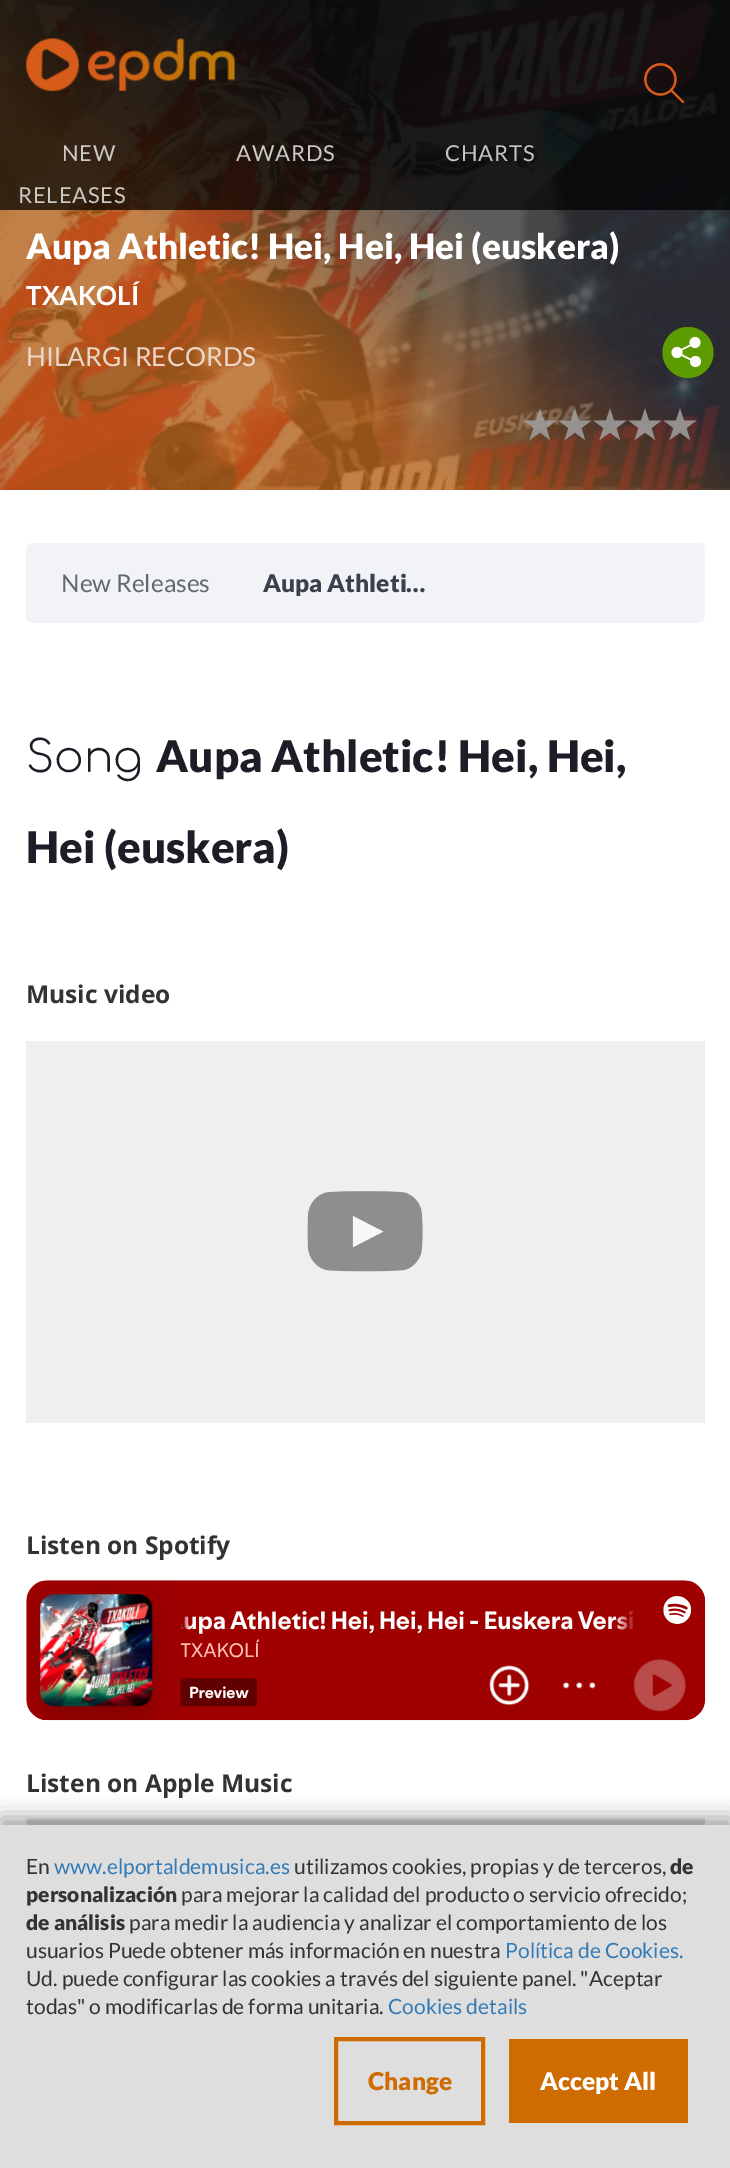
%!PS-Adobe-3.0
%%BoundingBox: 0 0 730 2168
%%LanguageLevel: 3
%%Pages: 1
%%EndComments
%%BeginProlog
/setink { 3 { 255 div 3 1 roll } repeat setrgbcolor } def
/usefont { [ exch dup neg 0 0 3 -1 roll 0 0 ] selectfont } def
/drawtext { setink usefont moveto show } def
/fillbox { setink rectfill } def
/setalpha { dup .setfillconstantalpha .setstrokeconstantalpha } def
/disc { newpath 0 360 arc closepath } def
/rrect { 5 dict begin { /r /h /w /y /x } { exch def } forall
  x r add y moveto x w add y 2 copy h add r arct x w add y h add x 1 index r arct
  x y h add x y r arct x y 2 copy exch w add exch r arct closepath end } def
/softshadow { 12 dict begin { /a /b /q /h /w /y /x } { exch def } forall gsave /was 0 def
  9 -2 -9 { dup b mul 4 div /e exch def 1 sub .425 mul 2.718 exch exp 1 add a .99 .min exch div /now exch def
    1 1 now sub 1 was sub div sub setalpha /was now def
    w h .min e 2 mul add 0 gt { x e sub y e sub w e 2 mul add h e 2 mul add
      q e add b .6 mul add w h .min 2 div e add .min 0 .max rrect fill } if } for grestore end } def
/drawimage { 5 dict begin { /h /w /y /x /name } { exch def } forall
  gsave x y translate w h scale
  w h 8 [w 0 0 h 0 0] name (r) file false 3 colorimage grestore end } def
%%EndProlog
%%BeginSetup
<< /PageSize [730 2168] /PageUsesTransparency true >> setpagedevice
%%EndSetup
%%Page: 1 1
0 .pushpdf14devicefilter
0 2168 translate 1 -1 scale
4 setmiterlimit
0 0 730 2168 255 255 255 fillbox
gsave 0 0 moveto 730 0 lineto 730 490 lineto 0 490 lineto closepath clip newpath
<< /ShadingType 2 /ColorSpace /DeviceRGB /Coords [87 566 644 -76] /Extend [true true] /Function << /FunctionType 3 /Domain [0 1] /Functions [<< /FunctionType 2 /Domain [0 1] /C0 [0.702 0.384 0.102] /C1 [0.702 0.384 0.102] /N 1 >> << /FunctionType 2 /Domain [0 1] /C0 [0.702 0.384 0.102] /C1 [0.2 0.2 0.2] /N 1 >> << /FunctionType 2 /Domain [0 1] /C0 [0.2 0.2 0.2] /C1 [0.2 0.2 0.2] /N 1 >>] /Bounds [0.35 0.61] /Encode [0 1 0 1 0 1] >> >> shfill grestore
(assets/img3.rgb) 0 0 730 490 drawimage
0.72 setalpha
0 0 730 210 0 0 0 fillbox
1 setalpha
(assets/img1.rgb) 26 38 209 53 drawimage
/Lato-Regular 22 usefont
204 200 196 setink
62 161 moveto 0.75 0 (NEW) ashow
18 203 moveto 0.75 0 (RELEASES) ashow
236 161 moveto 0.75 0 (AWARDS) ashow
196 196 196 setink
445 161 moveto 0.75 0 (CHARTS) ashow
(assets/img2.rgb) 644 63 40 40 drawimage
(Aupa Athletic! Hei, Hei, Hei \(euskera\)) 26 259 /Lato-Black 35 255 255 255 drawtext
(TXAKOLÍ) 26 305 /Lato-Bold 26.25 255 255 255 drawtext
(HILARGI RECORDS) 26 366 /Lato-Regular 26.25 235 215 201 drawtext
93 156 0 setink
688 352.5 25.5 disc fill
255 255 255 setink
695 342.5 5.5 disc fill
677 352.5 5.5 disc fill
695.5 361.5 5.5 disc fill
1.4 setlinewidth
694 343.5 moveto 680 350.5 lineto 678.5 353.5 moveto 695.5 362 lineto stroke
0.85 setalpha
160 160 160 setink
540 408.5 moveto 544 420.5 lineto 556.5 420.5 lineto 546.5 428 lineto 550 440 lineto 540 432.5 lineto 529.5 440 lineto 533.5 428 lineto 523.5 420.5 lineto 536 420.5 lineto closepath fill
575 408.5 moveto 579 420.5 lineto 591.5 420.5 lineto 581.5 428 lineto 585 440 lineto 575 432.5 lineto 564.5 440 lineto 568.5 428 lineto 558.5 420.5 lineto 571 420.5 lineto closepath fill
610 408.5 moveto 614 420.5 lineto 626.5 420.5 lineto 616.5 428 lineto 620 440 lineto 610 432.5 lineto 599.5 440 lineto 603.5 428 lineto 593.5 420.5 lineto 606 420.5 lineto closepath fill
645 408.5 moveto 649 420.5 lineto 661.5 420.5 lineto 651.5 428 lineto 655 440 lineto 645 432.5 lineto 634.5 440 lineto 638.5 428 lineto 628.5 420.5 lineto 641 420.5 lineto closepath fill
680 408.5 moveto 684 420.5 lineto 696.5 420.5 lineto 686.5 428 lineto 690 440 lineto 680 432.5 lineto 669.5 440 lineto 673.5 428 lineto 663.5 420.5 lineto 676 420.5 lineto closepath fill
1 setalpha
241 243 246 setink
26 543 679 80 7 rrect fill
(New Releases) 61 592 /Lato-Regular 24.5 98 104 114 drawtext
(Aupa Athleti…) 263 592 /Lato-Black 24.5 57 65 77 drawtext
(Song) 26 772 /Comfortaa-Light 43.75 28 29 38 drawtext
(Aupa Athletic! Hei, Hei,) 156 772 /Lato-Black 43.75 28 29 38 drawtext
(Hei \(euskera\)) 26 863 /Lato-Black 43.75 28 29 38 drawtext
(Music video) 26 1003 /OpenSans-Bold 24.5 51 51 51 drawtext
26 1041 679 382 240 239 239 fillbox
(assets/img4.rgb) 307 1191 116 81 drawimage
(Listen on Spotify) 26 1554 /OpenSans-Bold 24.5 51 51 51 drawtext
(assets/img5.rgb) 26 1580 680 141 drawimage
(Listen on Apple Music) 26 1792 /OpenSans-Bold 24.5 51 51 51 drawtext
(assets/img6.rgb) 26 1818 679 7 drawimage
0 0 0 setink
0 1818 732 343 0 10.5 0.37 softshadow
0 1825 730 343 222 222 222 fillbox
(En) 26 1874 /Lato-Regular 21 51 51 51 drawtext
(www.elportaldemusica.es) 54 1874 /Lato-Regular 21 51 122 183 drawtext
(utilizamos cookies, propias y de terceros,) 294 1874 /Lato-Regular 21 51 51 51 drawtext
(de) 670 1874 /Lato-Black 21 51 51 51 drawtext
(personalización) 26 1902 /Lato-Black 21 51 51 51 drawtext
(para mejorar la calidad del producto o servicio ofrecido;) 181 1902 /Lato-Regular 21 51 51 51 drawtext
(de análisis) 26 1930 /Lato-Black 21 51 51 51 drawtext
(para medir la audiencia y analizar el comportamiento de los) 129 1930 /Lato-Regular 21 51 51 51 drawtext
(usuarios Puede obtener más información en nuestra) 26 1958 /Lato-Regular 21 51 51 51 drawtext
(Política de Cookies.) 505 1958 /Lato-Regular 21 51 122 183 drawtext
(Ud. puede configurar las cookies a través del siguiente panel. "Aceptar) 26 1986 /Lato-Regular 21 51 51 51 drawtext
(todas" o modificarlas de forma unitaria.) 26 2014 /Lato-Regular 21 51 51 51 drawtext
(Cookies details) 388 2014 /Lato-Regular 21 51 122 183 drawtext
206 107 1 setink
4 setlinewidth
336 2039 147 84 rectstroke
(Change) 368 2090 /Lato-Black 24.5 206 107 1 drawtext
509 2039 179 84 206 107 1 fillbox
(Accept All) 540 2090 /Lato-Black 24.5 255 255 255 drawtext
.poppdf14devicefilter showpage
%%EOF
